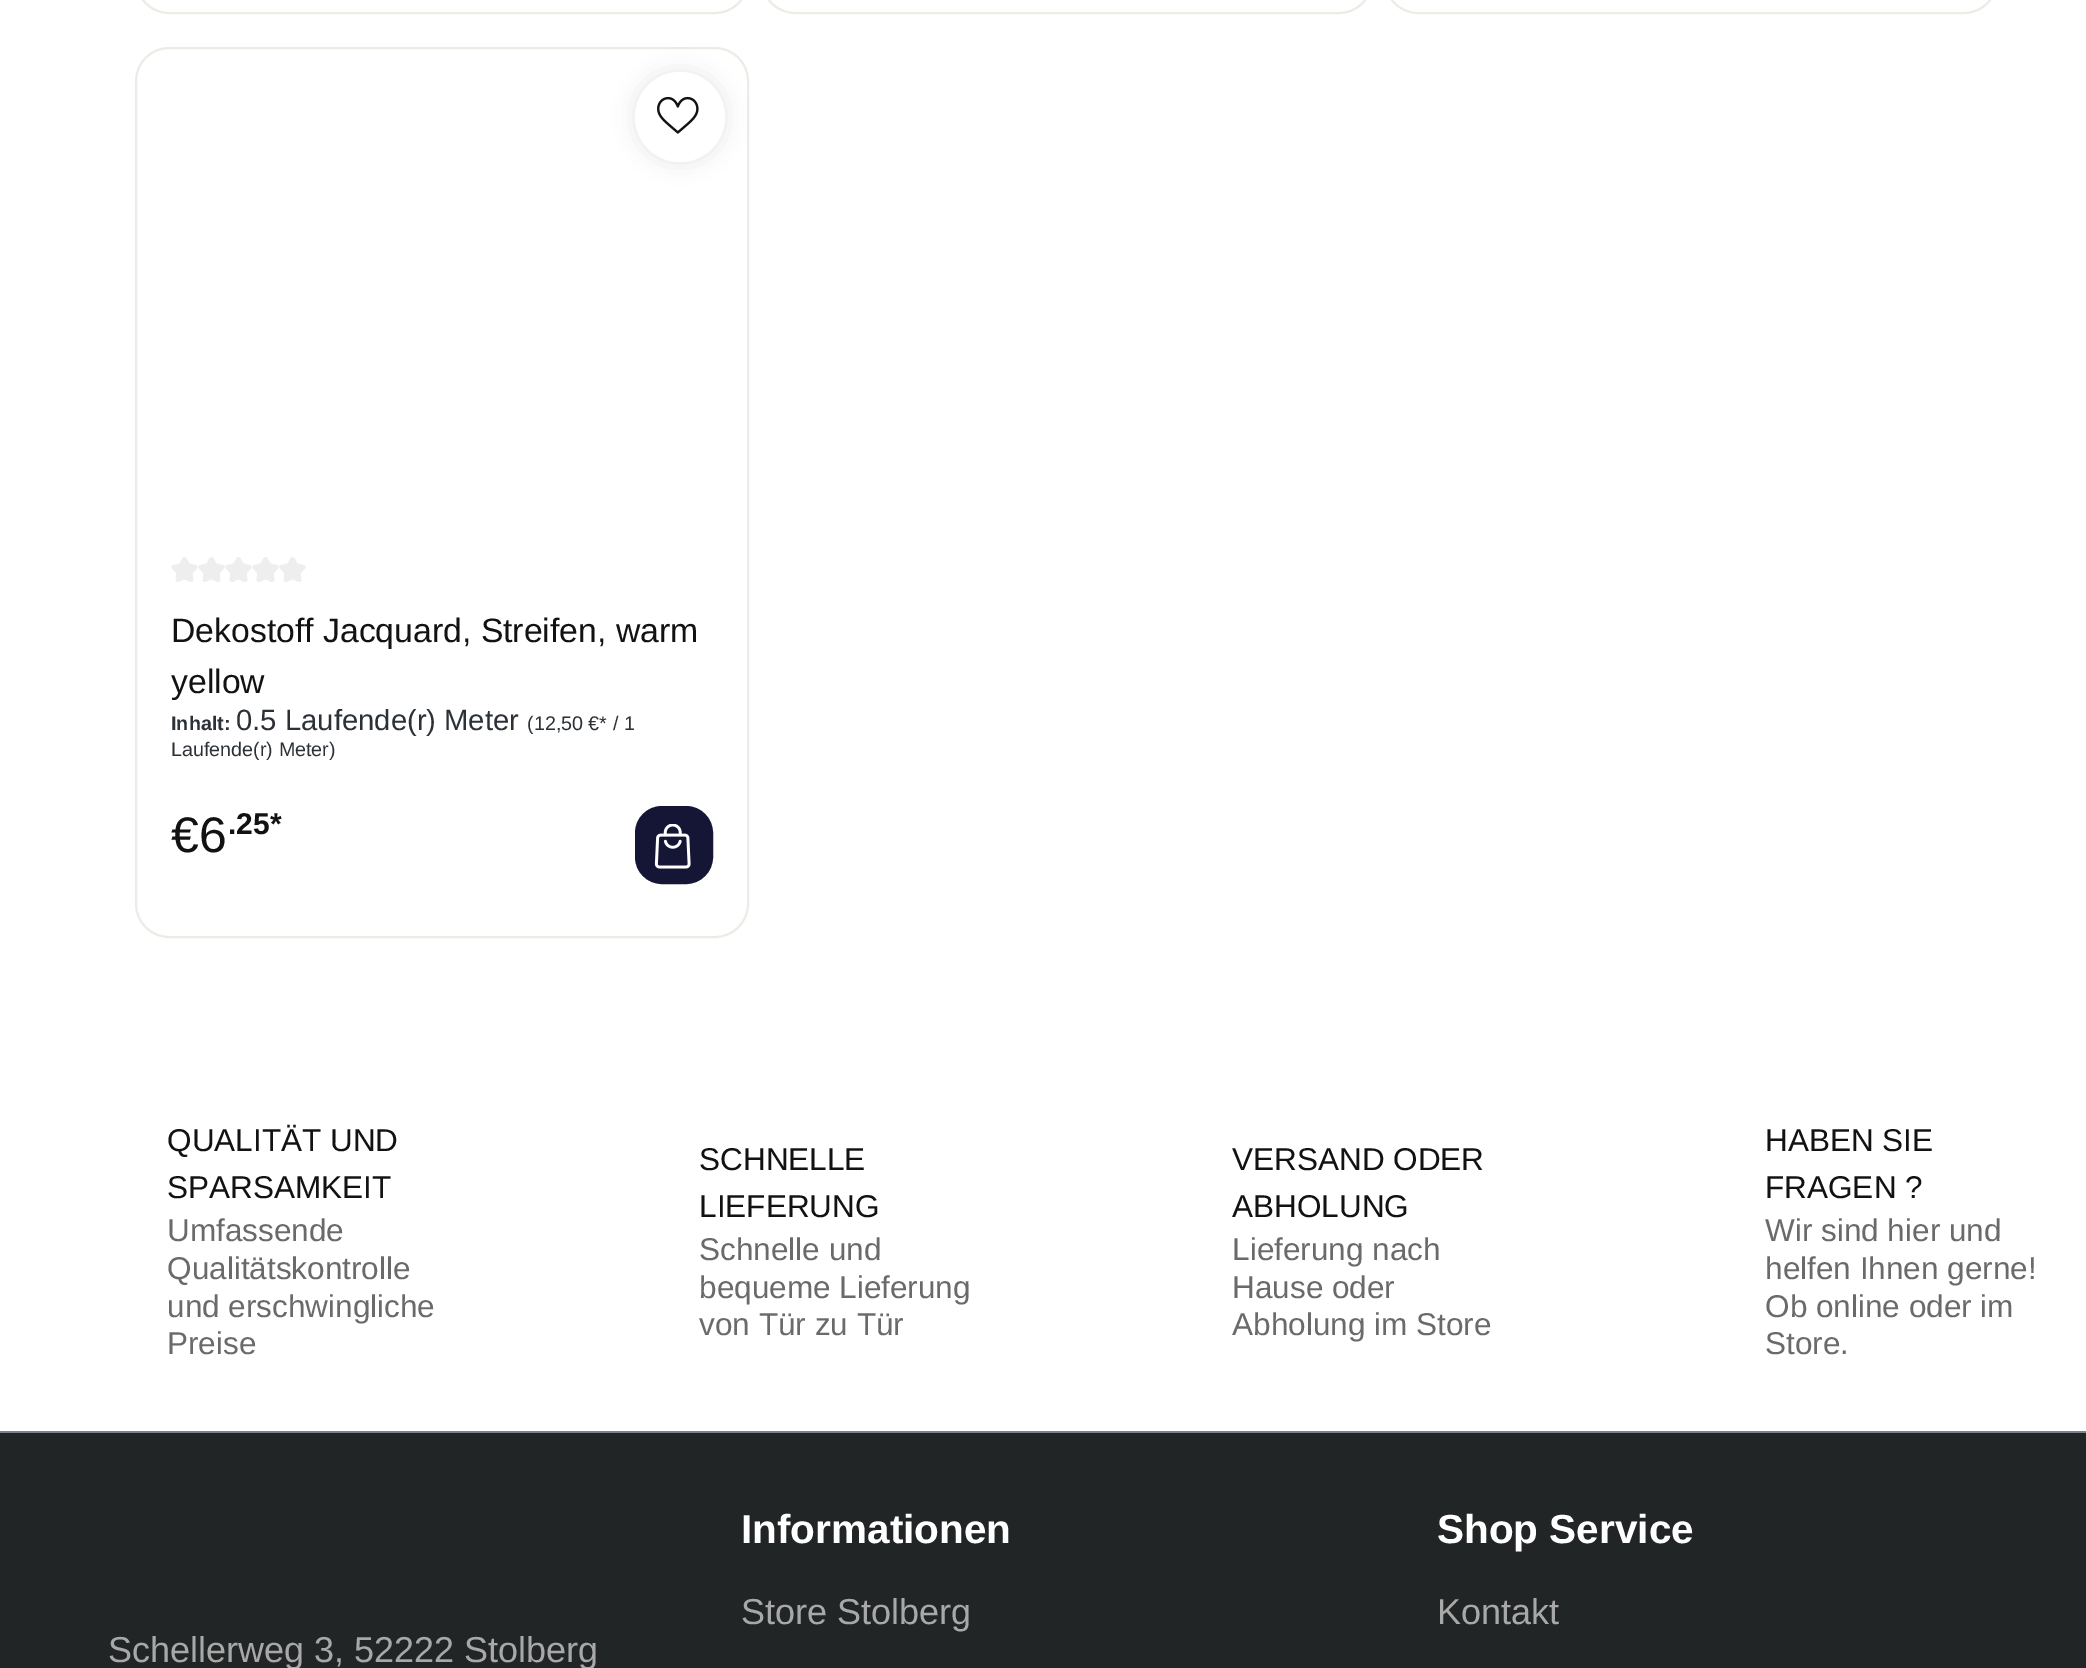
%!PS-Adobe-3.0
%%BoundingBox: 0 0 2086 1668
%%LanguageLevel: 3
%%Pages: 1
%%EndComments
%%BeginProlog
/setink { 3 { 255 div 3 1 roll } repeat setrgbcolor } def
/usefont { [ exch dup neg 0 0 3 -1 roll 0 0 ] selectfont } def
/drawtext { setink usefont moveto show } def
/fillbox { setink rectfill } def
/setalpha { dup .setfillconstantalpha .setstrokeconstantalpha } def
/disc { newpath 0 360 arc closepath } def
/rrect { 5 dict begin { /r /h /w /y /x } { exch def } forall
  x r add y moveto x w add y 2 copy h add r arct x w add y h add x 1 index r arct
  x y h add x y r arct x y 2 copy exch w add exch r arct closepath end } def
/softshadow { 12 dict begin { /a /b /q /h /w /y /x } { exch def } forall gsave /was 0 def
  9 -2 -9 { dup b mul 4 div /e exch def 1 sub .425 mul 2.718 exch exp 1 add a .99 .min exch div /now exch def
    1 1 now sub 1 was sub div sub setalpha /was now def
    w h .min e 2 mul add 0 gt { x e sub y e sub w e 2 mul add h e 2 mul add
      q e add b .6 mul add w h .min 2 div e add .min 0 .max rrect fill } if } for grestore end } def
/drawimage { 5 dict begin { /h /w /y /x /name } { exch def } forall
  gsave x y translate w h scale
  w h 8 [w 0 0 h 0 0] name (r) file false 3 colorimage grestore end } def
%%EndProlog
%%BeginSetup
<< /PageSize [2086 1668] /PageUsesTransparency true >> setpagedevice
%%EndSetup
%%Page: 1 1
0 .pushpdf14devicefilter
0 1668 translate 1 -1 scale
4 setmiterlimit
0 0 2086 1668 255 255 255 fillbox
236 236 231 setink
2 setlinewidth
136 -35 612 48 33 rrect stroke
762 -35 610 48 33 rrect stroke
1385 -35 612 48 33 rrect stroke
136 48 612 889 33 rrect stroke
0 0 0 setink
635 72 90 90 45 11 0.1 softshadow
255 255 255 setink
680 117 45 disc fill
(assets/img1.rgb) 657 96 42 38 drawimage
(assets/img2.rgb) 171 557 27 25 drawimage
(assets/img2.rgb) 198 557 27 25 drawimage
(assets/img2.rgb) 225 557 27 25 drawimage
(assets/img2.rgb) 252 557 27 25 drawimage
(assets/img2.rgb) 279 557 27 25 drawimage
(Dekostoff Jacquard, Streifen, warm) 171 642 /LiberationSans-Regular 33.75 18 18 18 drawtext
(yellow) 171 693 /LiberationSans-Regular 33.75 18 18 18 drawtext
(Inhalt:) 171 730 /LiberationSans-Bold 19.75 43 49 54 drawtext
gsave
171 709 542 81 rectclip
(0.5 Laufende\(r\) Meter) 236 730 /LiberationSans-Regular 29.25 43 49 54 drawtext
grestore
(\(12,50 €* / 1) 527 730 /LiberationSans-Regular 19.75 43 49 54 drawtext
(Laufende\(r\) Meter\)) 171 756 /LiberationSans-Regular 19.75 43 49 54 drawtext
(€6) 171 852 /LiberationSans-Regular 50 18 18 18 drawtext
(.25*) 228 834 /LiberationSans-Bold 30 18 18 18 drawtext
21 22 53 setink
636 807 76 76 26 rrect gsave fill grestore
stroke
(assets/img3.rgb) 654 824 37 45 drawimage
(QUALITÄT UND) 167 1151 /LiberationSans-Regular 31.5 18 18 18 drawtext
(SPARSAMKEIT) 167 1198 /LiberationSans-Regular 31.5 18 18 18 drawtext
(Umfassende) 167 1241 /LiberationSans-Regular 31.5 106 106 106 drawtext
(Qualitätskontrolle) 167 1279 /LiberationSans-Regular 31.5 106 106 106 drawtext
(und erschwingliche) 167 1317 /LiberationSans-Regular 31.5 106 106 106 drawtext
(Preise) 167 1354 /LiberationSans-Regular 31.5 106 106 106 drawtext
(SCHNELLE) 699 1170 /LiberationSans-Regular 31.5 18 18 18 drawtext
(LIEFERUNG) 699 1217 /LiberationSans-Regular 31.5 18 18 18 drawtext
(Schnelle und) 699 1260 /LiberationSans-Regular 31.5 106 106 106 drawtext
(bequeme Lieferung) 699 1298 /LiberationSans-Regular 31.5 106 106 106 drawtext
(von Tür zu Tür) 699 1335 /LiberationSans-Regular 31.5 106 106 106 drawtext
(VERSAND ODER) 1232 1170 /LiberationSans-Regular 31.5 18 18 18 drawtext
(ABHOLUNG) 1232 1217 /LiberationSans-Regular 31.5 18 18 18 drawtext
(Lieferung nach) 1232 1260 /LiberationSans-Regular 31.5 106 106 106 drawtext
(Hause oder) 1232 1298 /LiberationSans-Regular 31.5 106 106 106 drawtext
(Abholung im Store) 1232 1335 /LiberationSans-Regular 31.5 106 106 106 drawtext
(HABEN SIE) 1765 1151 /LiberationSans-Regular 31.5 18 18 18 drawtext
(FRAGEN ?) 1765 1198 /LiberationSans-Regular 31.5 18 18 18 drawtext
(Wir sind hier und) 1765 1241 /LiberationSans-Regular 31.5 106 106 106 drawtext
(helfen Ihnen gerne!) 1765 1279 /LiberationSans-Regular 31.5 106 106 106 drawtext
(Ob online oder im) 1765 1317 /LiberationSans-Regular 31.5 106 106 106 drawtext
(Store.) 1765 1354 /LiberationSans-Regular 31.5 106 106 106 drawtext
0 1433 2086 235 34 37 37 fillbox
0 1431 2086 2 121 132 144 fillbox
(Informationen) 741 1543 /LiberationSans-Bold 40.5 255 255 255 drawtext
(Store Stolberg) 741 1624 /LiberationSans-Regular 36 168 168 168 drawtext
(Shop Service) 1437 1543 /LiberationSans-Bold 40.5 255 255 255 drawtext
(Kontakt) 1437 1624 /LiberationSans-Regular 36 168 168 168 drawtext
(Schellerweg 3, 52222 Stolberg) 108 1662 /LiberationSans-Regular 36 168 168 168 drawtext
.poppdf14devicefilter showpage
%%EOF
